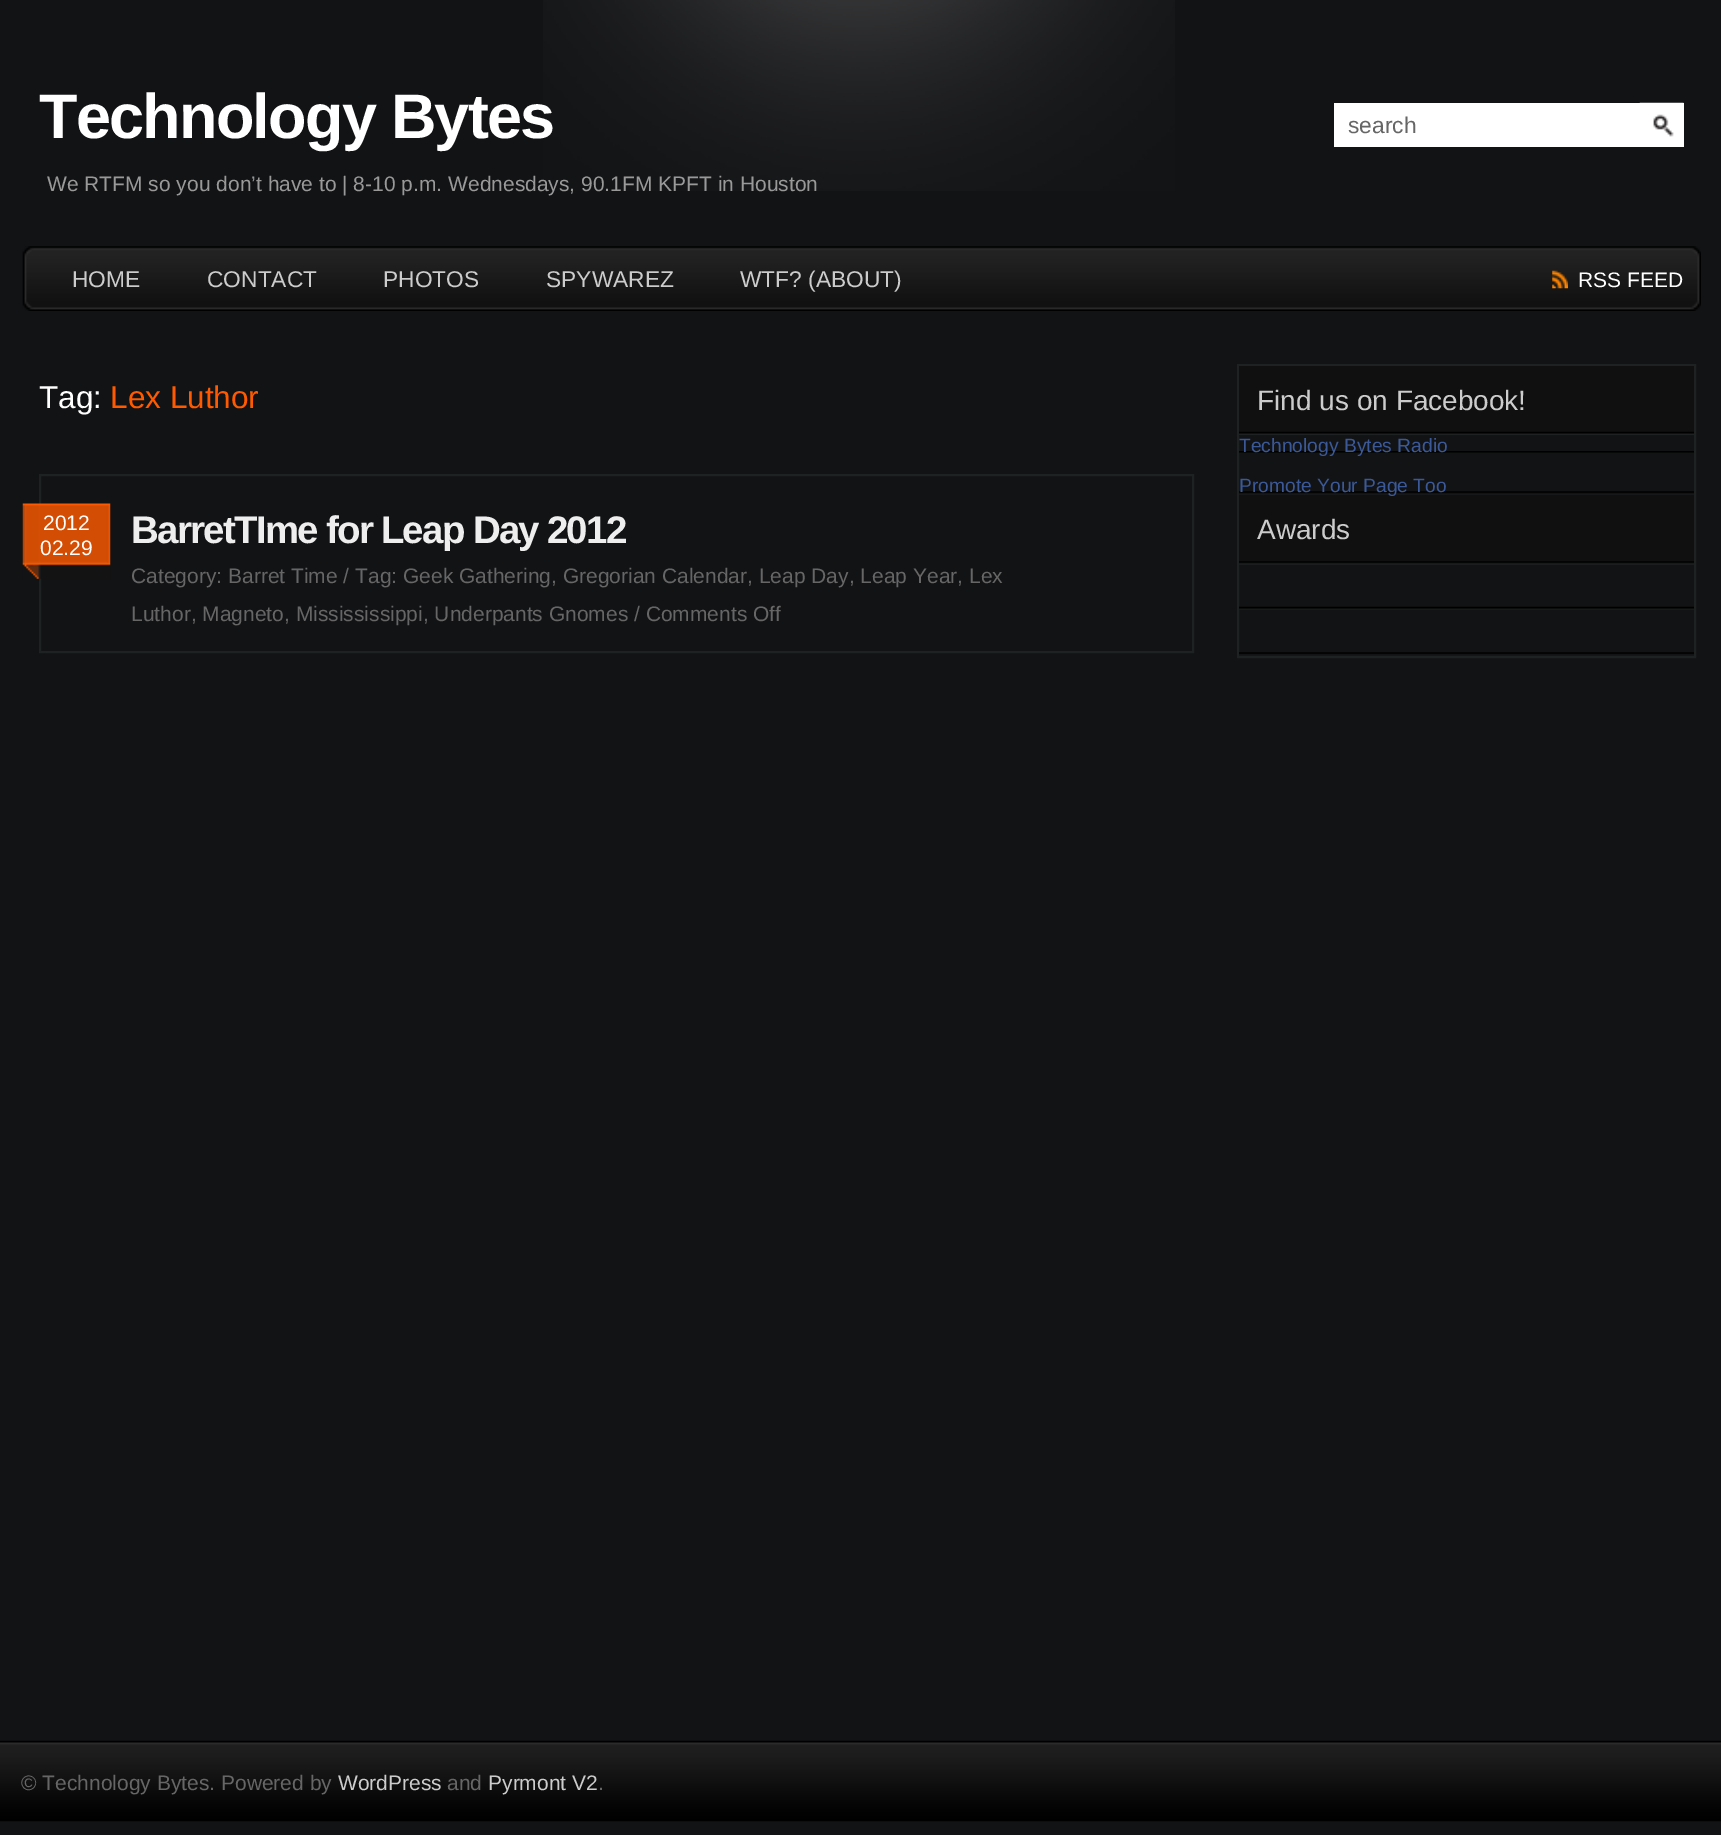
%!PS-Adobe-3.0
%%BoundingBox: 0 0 1721 1835
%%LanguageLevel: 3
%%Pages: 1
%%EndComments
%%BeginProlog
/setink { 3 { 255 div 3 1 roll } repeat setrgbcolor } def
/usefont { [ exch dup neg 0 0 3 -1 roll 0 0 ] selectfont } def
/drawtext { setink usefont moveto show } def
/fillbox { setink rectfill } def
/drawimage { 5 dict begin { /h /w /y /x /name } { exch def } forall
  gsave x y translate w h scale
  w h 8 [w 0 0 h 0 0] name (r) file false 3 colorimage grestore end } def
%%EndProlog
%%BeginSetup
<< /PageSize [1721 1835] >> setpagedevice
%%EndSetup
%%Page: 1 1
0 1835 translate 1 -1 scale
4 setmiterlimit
0 0 1721 1835 18 19 21 fillbox
(assets/img1.rgb) 543 0 632 191 drawimage
/LiberationSans-Bold 63 usefont
255 255 255 setink
39 138 moveto -1.75 0 (Technology Bytes) ashow
(We RTFM so you don’t have to | 8-10 p.m. Wednesdays, 90.1FM KPFT in Houston) 47 191 /LiberationSans-Regular 21 153 153 153 drawtext
1334 103 350 44 255 255 255 fillbox
(search) 1348 133 /LiberationSans-Regular 22.75 102 102 102 drawtext
(assets/img2.rgb) 1639 102 45 35 drawimage
(assets/img3.rgb) 22 246 1679 65 drawimage
(HOME) 72 287 /LiberationSans-Regular 22.75 204 204 204 drawtext
(CONTACT) 207 287 /LiberationSans-Regular 22.75 204 204 204 drawtext
(PHOTOS) 383 287 /LiberationSans-Regular 22.75 204 204 204 drawtext
(SPYWAREZ) 546 287 /LiberationSans-Regular 22.75 204 204 204 drawtext
(WTF? \(ABOUT\)) 740 287 /LiberationSans-Regular 22.75 204 204 204 drawtext
(assets/img4.rgb) 1552 270 16 19 drawimage
(RSS FEED) 1578 287 /LiberationSans-Regular 21 255 255 255 drawtext
(Tag:) 39 408 /LiberationSans-Regular 31.5 255 255 255 drawtext
(Lex Luthor) 110 408 /LiberationSans-Regular 31.5 255 90 0 drawtext
31 34 35 setink
2 setlinewidth
40 475 1153 177 rectstroke
(assets/img5.rgb) 22 503 89 76 drawimage
(2012) 43 530 /LiberationSans-Regular 21 255 255 255 drawtext
(02.29) 40 555 /LiberationSans-Regular 21 255 255 255 drawtext
/LiberationSans-Bold 38.5 usefont
238 238 238 setink
131 543 moveto -1.75 0 (BarretTIme for Leap Day 2012) ashow
(Category: Barret Time / Tag: Geek Gathering, Gregorian Calendar, Leap Day, Leap Year, Lex) 131 583 /LiberationSans-Regular 21 102 102 102 drawtext
(Luthor, Magneto, Missississippi, Underpants Gnomes / Comments Off) 131 621 /LiberationSans-Regular 21 102 102 102 drawtext
31 34 35 setink
1238 365 457 292 rectstroke
1239 366 455 70 16 16 16 fillbox
(assets/img6.rgb) 1239 431 455 5 drawimage
(Find us on Facebook!) 1257 410 /LiberationSans-Regular 28 204 204 204 drawtext
(assets/img7.rgb) 1239 451 455 2 drawimage
(Technology Bytes Radio) 1239 452 /LiberationSans-Regular 19.25 59 89 152 drawtext
(assets/img8.rgb) 1239 491 455 4 drawimage
1239 495 455 70 16 16 16 fillbox
(Promote Your Page Too) 1239 492 /LiberationSans-Regular 19.25 59 89 152 drawtext
(assets/img9.rgb) 1239 561 455 4 drawimage
(Awards) 1257 539 /LiberationSans-Regular 28 204 204 204 drawtext
(assets/img10.rgb) 1239 606 455 4 drawimage
(assets/img11.rgb) 1239 652 455 4 drawimage
(assets/img12.rgb) 0 1740 1721 82 drawimage
(© Technology Bytes. Powered by) 21 1790 /LiberationSans-Regular 21 102 102 102 drawtext
(WordPress) 338 1790 /LiberationSans-Regular 21 204 204 204 drawtext
(and) 447 1790 /LiberationSans-Regular 21 102 102 102 drawtext
(Pyrmont V2) 488 1790 /LiberationSans-Regular 21 204 204 204 drawtext
(.) 598 1790 /LiberationSans-Regular 21 102 102 102 drawtext
showpage
%%EOF
